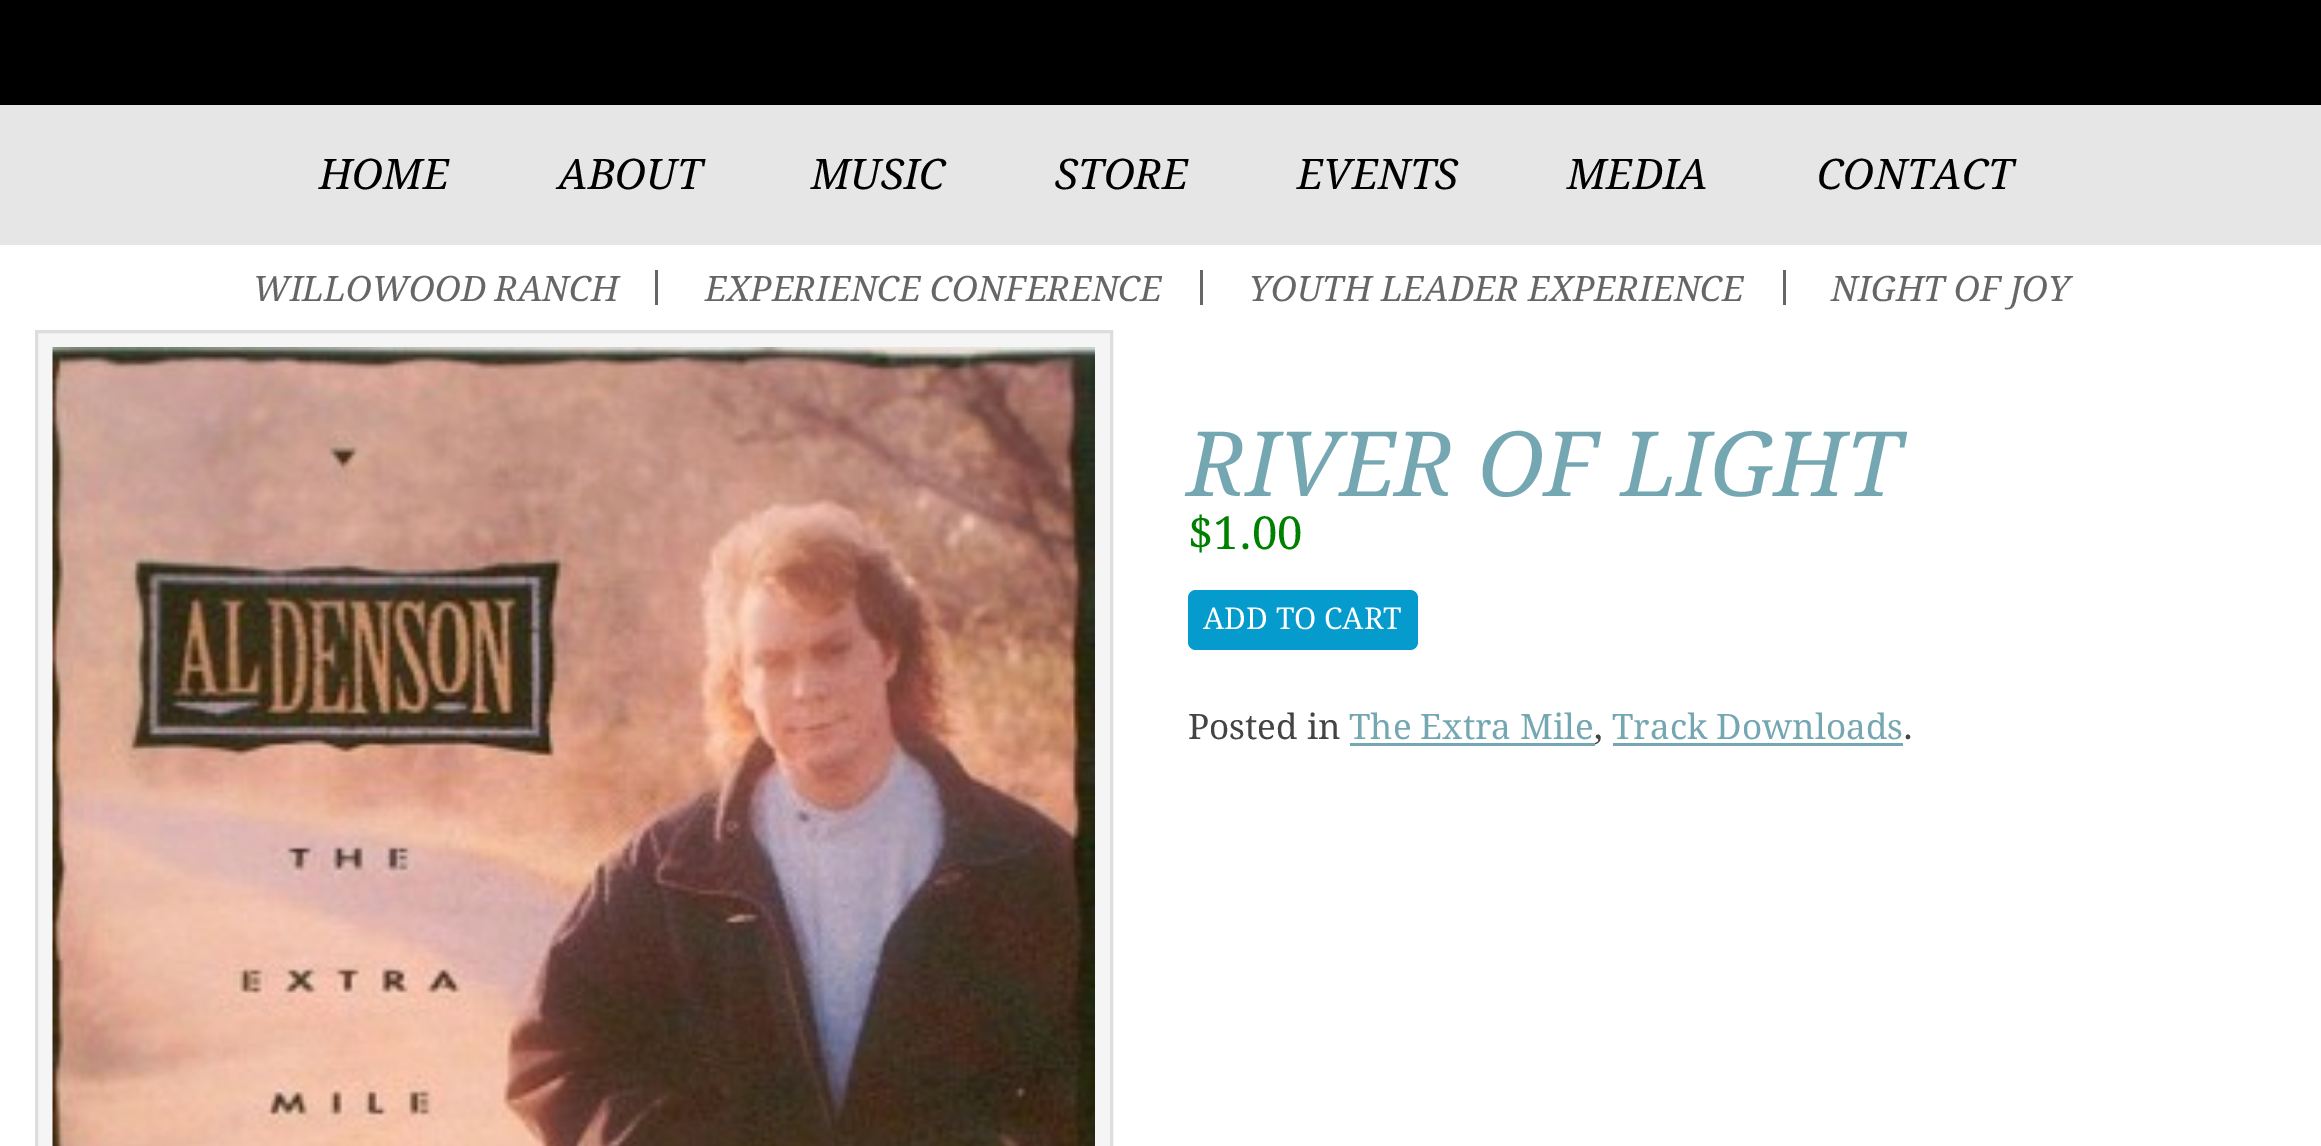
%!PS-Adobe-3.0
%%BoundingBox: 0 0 2321 1146
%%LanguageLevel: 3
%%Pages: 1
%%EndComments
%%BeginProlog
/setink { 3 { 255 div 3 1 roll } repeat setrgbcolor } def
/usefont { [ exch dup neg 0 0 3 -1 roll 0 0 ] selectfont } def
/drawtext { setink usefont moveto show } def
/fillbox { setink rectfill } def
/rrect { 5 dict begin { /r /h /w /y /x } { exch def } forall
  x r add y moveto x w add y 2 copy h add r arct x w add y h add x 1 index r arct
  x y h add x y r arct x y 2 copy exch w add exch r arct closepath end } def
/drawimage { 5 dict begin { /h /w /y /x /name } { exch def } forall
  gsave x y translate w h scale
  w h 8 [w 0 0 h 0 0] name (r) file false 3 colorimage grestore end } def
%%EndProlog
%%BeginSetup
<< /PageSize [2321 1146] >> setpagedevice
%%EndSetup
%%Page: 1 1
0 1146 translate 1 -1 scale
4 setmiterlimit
0 0 2321 1146 255 255 255 fillbox
0 0 2321 105 0 0 0 fillbox
0 105 2321 140 230 230 230 fillbox
(HOME) 319 189 /DroidSerif-Italic 42 0 0 0 drawtext
(ABOUT) 558 189 /DroidSerif-Italic 42 0 0 0 drawtext
(MUSIC) 811 189 /DroidSerif-Italic 42 0 0 0 drawtext
(STORE) 1055 189 /DroidSerif-Italic 42 0 0 0 drawtext
(EVENTS) 1297 189 /DroidSerif-Italic 42 0 0 0 drawtext
(MEDIA) 1567 189 /DroidSerif-Italic 42 0 0 0 drawtext
(CONTACT) 1817 189 /DroidSerif-Italic 42 0 0 0 drawtext
655 270 3 35 102 102 102 fillbox
(WILLOWOOD RANCH) 253 301 /DroidSerif-Italic 35 102 102 102 drawtext
1200 270 3 35 102 102 102 fillbox
(EXPERIENCE CONFERENCE) 705 301 /DroidSerif-Italic 35 102 102 102 drawtext
1783 270 3 35 102 102 102 fillbox
(YOUTH LEADER EXPERIENCE) 1249 301 /DroidSerif-Italic 35 102 102 102 drawtext
(NIGHT OF JOY) 1831 301 /DroidSerif-Italic 35 102 102 102 drawtext
245 245 245 setink
36.5 331.5 moveto 1111.5 331.5 lineto 1111.5 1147.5 lineto 36.5 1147.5 lineto closepath gsave fill grestore
221 221 221 setink
3 setlinewidth
stroke
(assets/img1.rgb) 52 347 1043 799 drawimage
(RIVER OF LIGHT) 1188 496 /DroidSerif-Italic 90 116 167 178 drawtext
($1.00) 1188 549 /DroidSerif-Regular 45.5 0 128 0 drawtext
6 155 205 setink
1188 590 230 60 8 rrect fill
(ADD TO CART) 1203 629 /DroidSerif-Regular 30 255 255 255 drawtext
(Posted in) 1188 739 /DroidSerif-Regular 35 68 68 68 drawtext
(The Extra Mile) 1349 739 /DroidSerif-Regular 35 116 167 178 drawtext
1350 743 245 3 116 167 178 fillbox
(,) 1594 739 /DroidSerif-Regular 35 68 68 68 drawtext
(Track Downloads) 1612 739 /DroidSerif-Regular 35 116 167 178 drawtext
1613 743 290 3 116 167 178 fillbox
(.) 1903 739 /DroidSerif-Regular 35 68 68 68 drawtext
showpage
%%EOF
